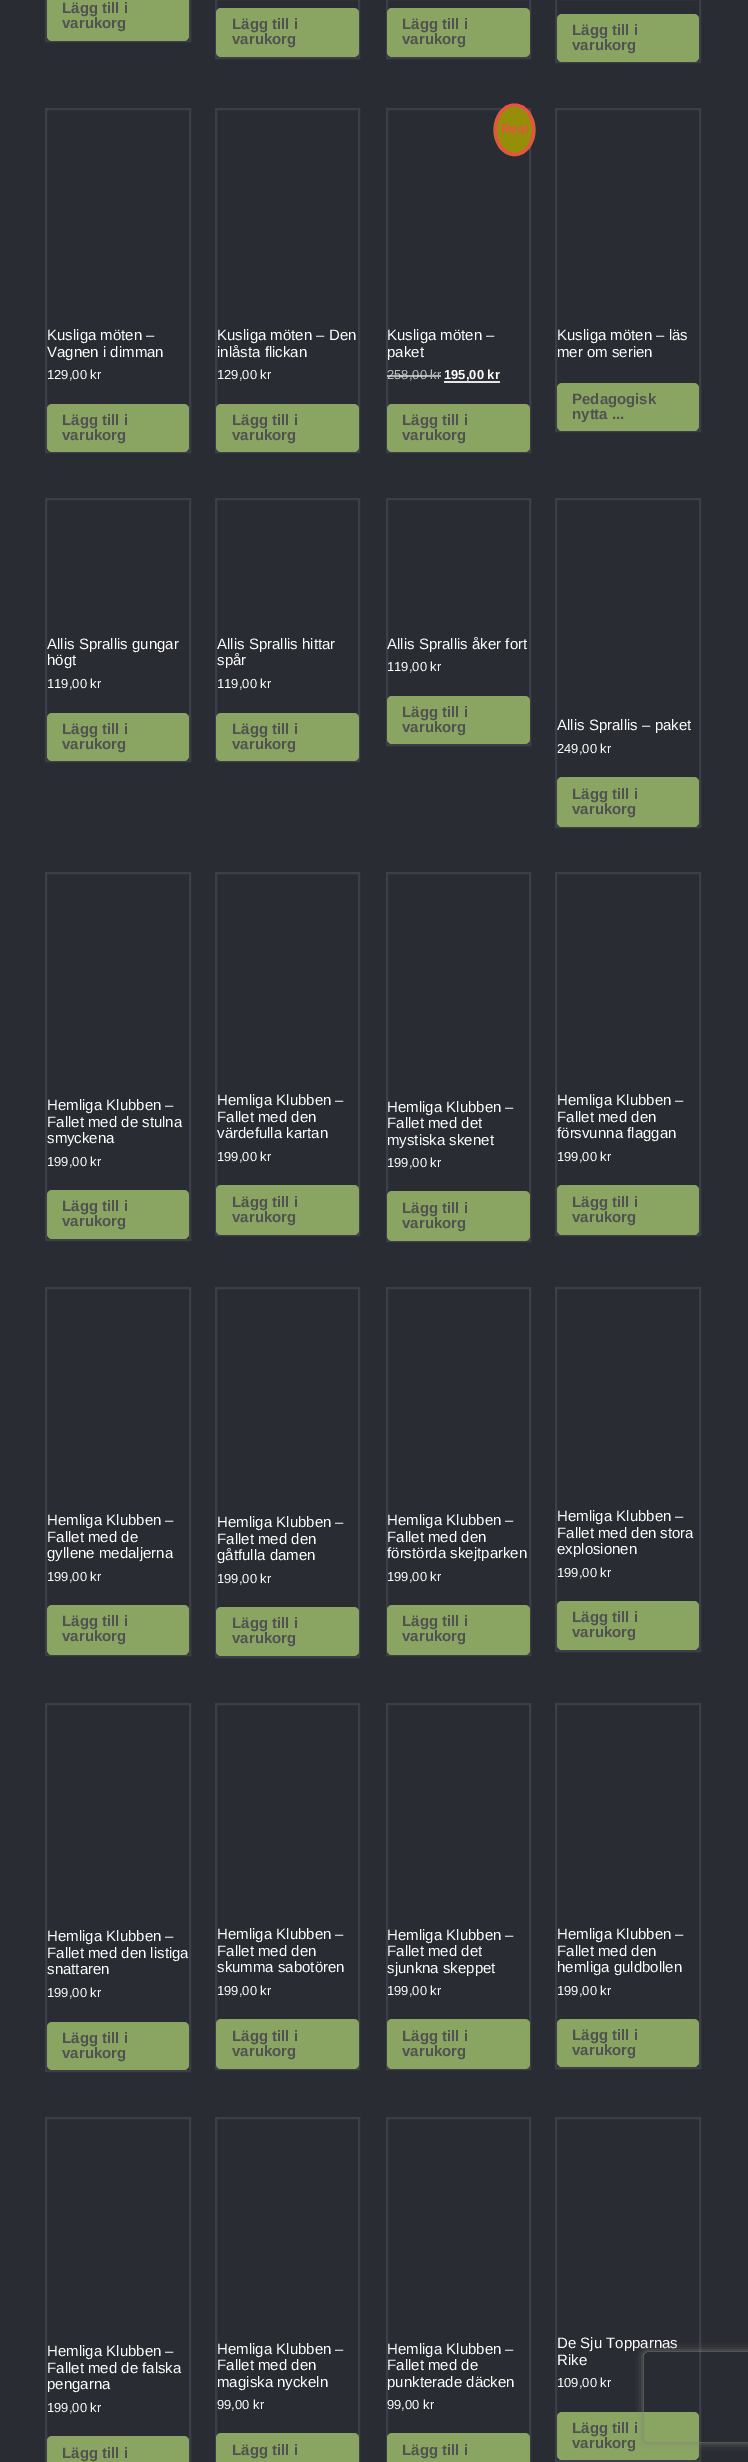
%!PS-Adobe-3.0
%%BoundingBox: 0 0 748 2462
%%LanguageLevel: 3
%%Pages: 1
%%EndComments
%%BeginProlog
/setink { 3 { 255 div 3 1 roll } repeat setrgbcolor } def
/usefont { [ exch dup neg 0 0 3 -1 roll 0 0 ] selectfont } def
/drawtext { setink usefont moveto show } def
/fillbox { setink rectfill } def
/setalpha { dup .setfillconstantalpha .setstrokeconstantalpha } def
/rrect { 5 dict begin { /r /h /w /y /x } { exch def } forall
  x r add y moveto x w add y 2 copy h add r arct x w add y h add x 1 index r arct
  x y h add x y r arct x y 2 copy exch w add exch r arct closepath end } def
/softshadow { 12 dict begin { /a /b /q /h /w /y /x } { exch def } forall gsave /was 0 def
  9 -2 -9 { dup b mul 4 div /e exch def 1 sub .425 mul 2.718 exch exp 1 add a .99 .min exch div /now exch def
    1 1 now sub 1 was sub div sub setalpha /was now def
    w h .min e 2 mul add 0 gt { x e sub y e sub w e 2 mul add h e 2 mul add
      q e add b .6 mul add w h .min 2 div e add .min 0 .max rrect fill } if } for grestore end } def
%%EndProlog
%%BeginSetup
<< /PageSize [748 2462] /PageUsesTransparency true >> setpagedevice
%%EndSetup
%%Page: 1 1
0 .pushpdf14devicefilter
0 2462 translate 1 -1 scale
4 setmiterlimit
0 0 748 2462 42 44 51 fillbox
60 63 73 setink
2 setlinewidth
46 -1 144 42 rectstroke
137 165 97 setink
47 -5 142 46 5 rrect fill
(Lägg till i) 62 13 /LiberationSans-Bold 15 81 81 81 drawtext
(varukorg) 62 28 /LiberationSans-Bold 15 81 81 81 drawtext
60 63 73 setink
216 -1 143 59 rectstroke
137 165 97 setink
216 8 143 49 5 rrect fill
(Lägg till i) 232 29 /LiberationSans-Bold 15 81 81 81 drawtext
(varukorg) 232 44 /LiberationSans-Bold 15 81 81 81 drawtext
60 63 73 setink
387 -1 143 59 rectstroke
137 165 97 setink
387 8 143 49 5 rrect fill
(Lägg till i) 402 29 /LiberationSans-Bold 15 81 81 81 drawtext
(varukorg) 402 44 /LiberationSans-Bold 15 81 81 81 drawtext
60 63 73 setink
556 -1 144 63 rectstroke
137 165 97 setink
557 14 142 48 5 rrect fill
(Lägg till i) 572 35 /LiberationSans-Bold 15 81 81 81 drawtext
(varukorg) 572 50 /LiberationSans-Bold 15 81 81 81 drawtext
60 63 73 setink
46 109 144 343 rectstroke
(Kusliga möten –) 47 340 /LiberationSans-Regular 15 255 255 255 drawtext
(Vagnen i dimman) 47 357 /LiberationSans-Regular 15 255 255 255 drawtext
(129,00 kr) 47 379 /LiberationSans-Regular 13 255 255 255 drawtext
137 165 97 setink
47 404 142 48 5 rrect fill
(Lägg till i) 62 425 /LiberationSans-Bold 15 81 81 81 drawtext
(varukorg) 62 440 /LiberationSans-Bold 15 81 81 81 drawtext
60 63 73 setink
216 109 143 343 rectstroke
(Kusliga möten – Den) 217 340 /LiberationSans-Regular 15 255 255 255 drawtext
(inlåsta flickan) 217 357 /LiberationSans-Regular 15 255 255 255 drawtext
(129,00 kr) 217 379 /LiberationSans-Regular 13 255 255 255 drawtext
137 165 97 setink
216 404 143 48 5 rrect fill
(Lägg till i) 232 425 /LiberationSans-Bold 15 81 81 81 drawtext
(varukorg) 232 440 /LiberationSans-Bold 15 81 81 81 drawtext
60 63 73 setink
387 109 143 343 rectstroke
149 142 9 setink
514.5 104 moveto 526 104 535.5 115.5 535.5 130 curveto 535.5 144.5 526 156 514.5 156 curveto 503 156 493.5 144.5 493.5 130 curveto 493.5 115.5 503 104 514.5 104 curveto closepath fill
233 81 68 setink
3 setlinewidth
514.5 105 moveto 540 105 540 154.5 514.5 154.5 curveto 489 154.5 489 105 514.5 105 curveto closepath stroke
(Rea!) 501 133 /LiberationSans-Bold 13 233 81 68 drawtext
(Kusliga möten –) 387 340 /LiberationSans-Regular 15 255 255 255 drawtext
(paket) 387 357 /LiberationSans-Regular 15 255 255 255 drawtext
(258,00) 387 379 /LiberationSans-Regular 13 191 192 194 drawtext
0.7 setalpha
387 375 44 2 229 229 229 fillbox
1 setalpha
(kr) 430 379 /LiberationSans-Regular 13 191 192 194 drawtext
431 375 10 2 173 174 176 fillbox
(195,00 kr) 444 379 /LiberationSans-Bold 13 255 255 255 drawtext
444 381 56 2 229 229 229 fillbox
137 165 97 setink
387 404 143 48 5 rrect fill
(Lägg till i) 402 425 /LiberationSans-Bold 15 81 81 81 drawtext
(varukorg) 402 440 /LiberationSans-Bold 15 81 81 81 drawtext
60 63 73 setink
2 setlinewidth
556 109 144 322 rectstroke
(Kusliga möten – läs) 557 340 /LiberationSans-Regular 15 255 255 255 drawtext
(mer om serien) 557 357 /LiberationSans-Regular 15 255 255 255 drawtext
137 165 97 setink
557 383 142 48 5 rrect fill
(Pedagogisk) 572 404 /LiberationSans-Bold 15 81 81 81 drawtext
(nytta ...) 572 419 /LiberationSans-Bold 15 81 81 81 drawtext
60 63 73 setink
46 499 144 262 rectstroke
(Allis Sprallis gungar) 47 649 /LiberationSans-Regular 15 255 255 255 drawtext
(högt) 47 665 /LiberationSans-Regular 15 255 255 255 drawtext
(119,00 kr) 47 688 /LiberationSans-Regular 13 255 255 255 drawtext
137 165 97 setink
47 713 142 48 5 rrect fill
(Lägg till i) 62 734 /LiberationSans-Bold 15 81 81 81 drawtext
(varukorg) 62 749 /LiberationSans-Bold 15 81 81 81 drawtext
60 63 73 setink
216 499 143 262 rectstroke
(Allis Sprallis hittar) 217 649 /LiberationSans-Regular 15 255 255 255 drawtext
(spår) 217 665 /LiberationSans-Regular 15 255 255 255 drawtext
(119,00 kr) 217 688 /LiberationSans-Regular 13 255 255 255 drawtext
137 165 97 setink
216 713 143 48 5 rrect fill
(Lägg till i) 232 734 /LiberationSans-Bold 15 81 81 81 drawtext
(varukorg) 232 749 /LiberationSans-Bold 15 81 81 81 drawtext
60 63 73 setink
387 499 143 246 rectstroke
(Allis Sprallis åker fort) 387 649 /LiberationSans-Regular 15 255 255 255 drawtext
(119,00 kr) 387 671 /LiberationSans-Regular 13 255 255 255 drawtext
137 165 97 setink
387 696 143 48 5 rrect fill
(Lägg till i) 402 717 /LiberationSans-Bold 15 81 81 81 drawtext
(varukorg) 402 732 /LiberationSans-Bold 15 81 81 81 drawtext
60 63 73 setink
556 499 144 328 rectstroke
(Allis Sprallis – paket) 557 730 /LiberationSans-Regular 15 255 255 255 drawtext
(249,00 kr) 557 753 /LiberationSans-Regular 13 255 255 255 drawtext
137 165 97 setink
557 777 142 50 5 rrect fill
(Lägg till i) 572 799 /LiberationSans-Bold 15 81 81 81 drawtext
(varukorg) 572 814 /LiberationSans-Bold 15 81 81 81 drawtext
60 63 73 setink
46 873 144 367 rectstroke
(Hemliga Klubben –) 47 1110 /LiberationSans-Regular 15 255 255 255 drawtext
(Fallet med de stulna) 47 1127 /LiberationSans-Regular 15 255 255 255 drawtext
(smyckena) 47 1143 /LiberationSans-Regular 15 255 255 255 drawtext
(199,00 kr) 47 1166 /LiberationSans-Regular 13 255 255 255 drawtext
137 165 97 setink
47 1190 142 49 5 rrect fill
(Lägg till i) 62 1211 /LiberationSans-Bold 15 81 81 81 drawtext
(varukorg) 62 1226 /LiberationSans-Bold 15 81 81 81 drawtext
60 63 73 setink
216 873 143 362 rectstroke
(Hemliga Klubben –) 217 1105 /LiberationSans-Regular 15 255 255 255 drawtext
(Fallet med den) 217 1122 /LiberationSans-Regular 15 255 255 255 drawtext
(värdefulla kartan) 217 1138 /LiberationSans-Regular 15 255 255 255 drawtext
(199,00 kr) 217 1161 /LiberationSans-Regular 13 255 255 255 drawtext
137 165 97 setink
216 1185 143 50 5 rrect fill
(Lägg till i) 232 1207 /LiberationSans-Bold 15 81 81 81 drawtext
(varukorg) 232 1222 /LiberationSans-Bold 15 81 81 81 drawtext
60 63 73 setink
387 873 143 368 rectstroke
(Hemliga Klubben –) 387 1112 /LiberationSans-Regular 15 255 255 255 drawtext
(Fallet med det) 387 1128 /LiberationSans-Regular 15 255 255 255 drawtext
(mystiska skenet) 387 1145 /LiberationSans-Regular 15 255 255 255 drawtext
(199,00 kr) 387 1167 /LiberationSans-Regular 13 255 255 255 drawtext
137 165 97 setink
387 1191 143 50 5 rrect fill
(Lägg till i) 402 1213 /LiberationSans-Bold 15 81 81 81 drawtext
(varukorg) 402 1228 /LiberationSans-Bold 15 81 81 81 drawtext
60 63 73 setink
556 873 144 362 rectstroke
(Hemliga Klubben –) 557 1105 /LiberationSans-Regular 15 255 255 255 drawtext
(Fallet med den) 557 1122 /LiberationSans-Regular 15 255 255 255 drawtext
(försvunna flaggan) 557 1138 /LiberationSans-Regular 15 255 255 255 drawtext
(199,00 kr) 557 1161 /LiberationSans-Regular 13 255 255 255 drawtext
137 165 97 setink
557 1185 142 50 5 rrect fill
(Lägg till i) 572 1207 /LiberationSans-Bold 15 81 81 81 drawtext
(varukorg) 572 1222 /LiberationSans-Bold 15 81 81 81 drawtext
60 63 73 setink
46 1288 144 367 rectstroke
(Hemliga Klubben –) 47 1525 /LiberationSans-Regular 15 255 255 255 drawtext
(Fallet med de) 47 1542 /LiberationSans-Regular 15 255 255 255 drawtext
(gyllene medaljerna) 47 1558 /LiberationSans-Regular 15 255 255 255 drawtext
(199,00 kr) 47 1581 /LiberationSans-Regular 13 255 255 255 drawtext
137 165 97 setink
47 1605 142 50 5 rrect fill
(Lägg till i) 62 1626 /LiberationSans-Bold 15 81 81 81 drawtext
(varukorg) 62 1641 /LiberationSans-Bold 15 81 81 81 drawtext
60 63 73 setink
216 1288 143 369 rectstroke
(Hemliga Klubben –) 217 1527 /LiberationSans-Regular 15 255 255 255 drawtext
(Fallet med den) 217 1544 /LiberationSans-Regular 15 255 255 255 drawtext
(gåtfulla damen) 217 1560 /LiberationSans-Regular 15 255 255 255 drawtext
(199,00 kr) 217 1583 /LiberationSans-Regular 13 255 255 255 drawtext
137 165 97 setink
216 1607 143 49 5 rrect fill
(Lägg till i) 232 1628 /LiberationSans-Bold 15 81 81 81 drawtext
(varukorg) 232 1643 /LiberationSans-Bold 15 81 81 81 drawtext
60 63 73 setink
387 1288 143 367 rectstroke
(Hemliga Klubben –) 387 1525 /LiberationSans-Regular 15 255 255 255 drawtext
(Fallet med den) 387 1542 /LiberationSans-Regular 15 255 255 255 drawtext
(förstörda skejtparken) 387 1558 /LiberationSans-Regular 15 255 255 255 drawtext
(199,00 kr) 387 1581 /LiberationSans-Regular 13 255 255 255 drawtext
137 165 97 setink
387 1605 143 50 5 rrect fill
(Lägg till i) 402 1626 /LiberationSans-Bold 15 81 81 81 drawtext
(varukorg) 402 1641 /LiberationSans-Bold 15 81 81 81 drawtext
60 63 73 setink
556 1288 144 363 rectstroke
(Hemliga Klubben –) 557 1521 /LiberationSans-Regular 15 255 255 255 drawtext
(Fallet med den stora) 557 1538 /LiberationSans-Regular 15 255 255 255 drawtext
(explosionen) 557 1554 /LiberationSans-Regular 15 255 255 255 drawtext
(199,00 kr) 557 1577 /LiberationSans-Regular 13 255 255 255 drawtext
137 165 97 setink
557 1601 142 49 5 rrect fill
(Lägg till i) 572 1622 /LiberationSans-Bold 15 81 81 81 drawtext
(varukorg) 572 1637 /LiberationSans-Bold 15 81 81 81 drawtext
60 63 73 setink
46 1704 144 367 rectstroke
(Hemliga Klubben –) 47 1941 /LiberationSans-Regular 15 255 255 255 drawtext
(Fallet med den listiga) 47 1958 /LiberationSans-Regular 15 255 255 255 drawtext
(snattaren) 47 1974 /LiberationSans-Regular 15 255 255 255 drawtext
(199,00 kr) 47 1997 /LiberationSans-Regular 13 255 255 255 drawtext
137 165 97 setink
47 2022 142 48 5 rrect fill
(Lägg till i) 62 2043 /LiberationSans-Bold 15 81 81 81 drawtext
(varukorg) 62 2058 /LiberationSans-Bold 15 81 81 81 drawtext
60 63 73 setink
216 1704 143 365 rectstroke
(Hemliga Klubben –) 217 1939 /LiberationSans-Regular 15 255 255 255 drawtext
(Fallet med den) 217 1956 /LiberationSans-Regular 15 255 255 255 drawtext
(skumma sabotören) 217 1972 /LiberationSans-Regular 15 255 255 255 drawtext
(199,00 kr) 217 1995 /LiberationSans-Regular 13 255 255 255 drawtext
137 165 97 setink
216 2019 143 50 5 rrect fill
(Lägg till i) 232 2041 /LiberationSans-Bold 15 81 81 81 drawtext
(varukorg) 232 2056 /LiberationSans-Bold 15 81 81 81 drawtext
60 63 73 setink
387 1704 143 365 rectstroke
(Hemliga Klubben –) 387 1940 /LiberationSans-Regular 15 255 255 255 drawtext
(Fallet med det) 387 1956 /LiberationSans-Regular 15 255 255 255 drawtext
(sjunkna skeppet) 387 1973 /LiberationSans-Regular 15 255 255 255 drawtext
(199,00 kr) 387 1995 /LiberationSans-Regular 13 255 255 255 drawtext
137 165 97 setink
387 2019 143 50 5 rrect fill
(Lägg till i) 402 2041 /LiberationSans-Bold 15 81 81 81 drawtext
(varukorg) 402 2056 /LiberationSans-Bold 15 81 81 81 drawtext
60 63 73 setink
556 1704 144 364 rectstroke
(Hemliga Klubben –) 557 1939 /LiberationSans-Regular 15 255 255 255 drawtext
(Fallet med den) 557 1956 /LiberationSans-Regular 15 255 255 255 drawtext
(hemliga guldbollen) 557 1972 /LiberationSans-Regular 15 255 255 255 drawtext
(199,00 kr) 557 1995 /LiberationSans-Regular 13 255 255 255 drawtext
137 165 97 setink
557 2019 142 48 5 rrect fill
(Lägg till i) 572 2040 /LiberationSans-Bold 15 81 81 81 drawtext
(varukorg) 572 2055 /LiberationSans-Bold 15 81 81 81 drawtext
60 63 73 setink
46 2118 144 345 rectstroke
(Hemliga Klubben –) 47 2356 /LiberationSans-Regular 15 255 255 255 drawtext
(Fallet med de falska) 47 2373 /LiberationSans-Regular 15 255 255 255 drawtext
(pengarna) 47 2389 /LiberationSans-Regular 15 255 255 255 drawtext
(199,00 kr) 47 2412 /LiberationSans-Regular 13 255 255 255 drawtext
137 165 97 setink
47 2436 142 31 5 rrect fill
(Lägg till i) 62 2458 /LiberationSans-Bold 15 81 81 81 drawtext
60 63 73 setink
216 2118 143 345 rectstroke
(Hemliga Klubben –) 217 2354 /LiberationSans-Regular 15 255 255 255 drawtext
(Fallet med den) 217 2370 /LiberationSans-Regular 15 255 255 255 drawtext
(magiska nyckeln) 217 2387 /LiberationSans-Regular 15 255 255 255 drawtext
(99,00 kr) 217 2409 /LiberationSans-Regular 13 255 255 255 drawtext
137 165 97 setink
216 2433 143 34 5 rrect fill
(Lägg till i) 232 2455 /LiberationSans-Bold 15 81 81 81 drawtext
60 63 73 setink
387 2118 143 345 rectstroke
(Hemliga Klubben –) 387 2354 /LiberationSans-Regular 15 255 255 255 drawtext
(Fallet med de) 387 2370 /LiberationSans-Regular 15 255 255 255 drawtext
(punkterade däcken) 387 2387 /LiberationSans-Regular 15 255 255 255 drawtext
(99,00 kr) 387 2409 /LiberationSans-Regular 13 255 255 255 drawtext
137 165 97 setink
387 2433 143 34 5 rrect fill
(Lägg till i) 402 2455 /LiberationSans-Bold 15 81 81 81 drawtext
60 63 73 setink
556 2118 144 343 rectstroke
(De Sju Topparnas) 557 2348 /LiberationSans-Regular 15 255 255 255 drawtext
(Rike) 557 2365 /LiberationSans-Regular 15 255 255 255 drawtext
(109,00 kr) 557 2387 /LiberationSans-Regular 13 255 255 255 drawtext
137 165 97 setink
557 2412 142 48 5 rrect fill
(Lägg till i) 572 2433 /LiberationSans-Bold 15 81 81 81 drawtext
(varukorg) 572 2448 /LiberationSans-Bold 15 81 81 81 drawtext
gsave
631 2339 moveto 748 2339 lineto 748 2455 lineto 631 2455 lineto closepath 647 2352 moveto 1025 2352 lineto 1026.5 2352 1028 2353.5 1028 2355 curveto 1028 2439 lineto 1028 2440.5 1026.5 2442 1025 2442 curveto 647 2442 lineto 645.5 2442 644 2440.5 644 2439 curveto 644 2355 lineto 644 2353.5 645.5 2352 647 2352 curveto closepath eoclip newpath
128 128 128 setink
644 2352 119 90 3 4 1 softshadow
grestore
.poppdf14devicefilter showpage
%%EOF
